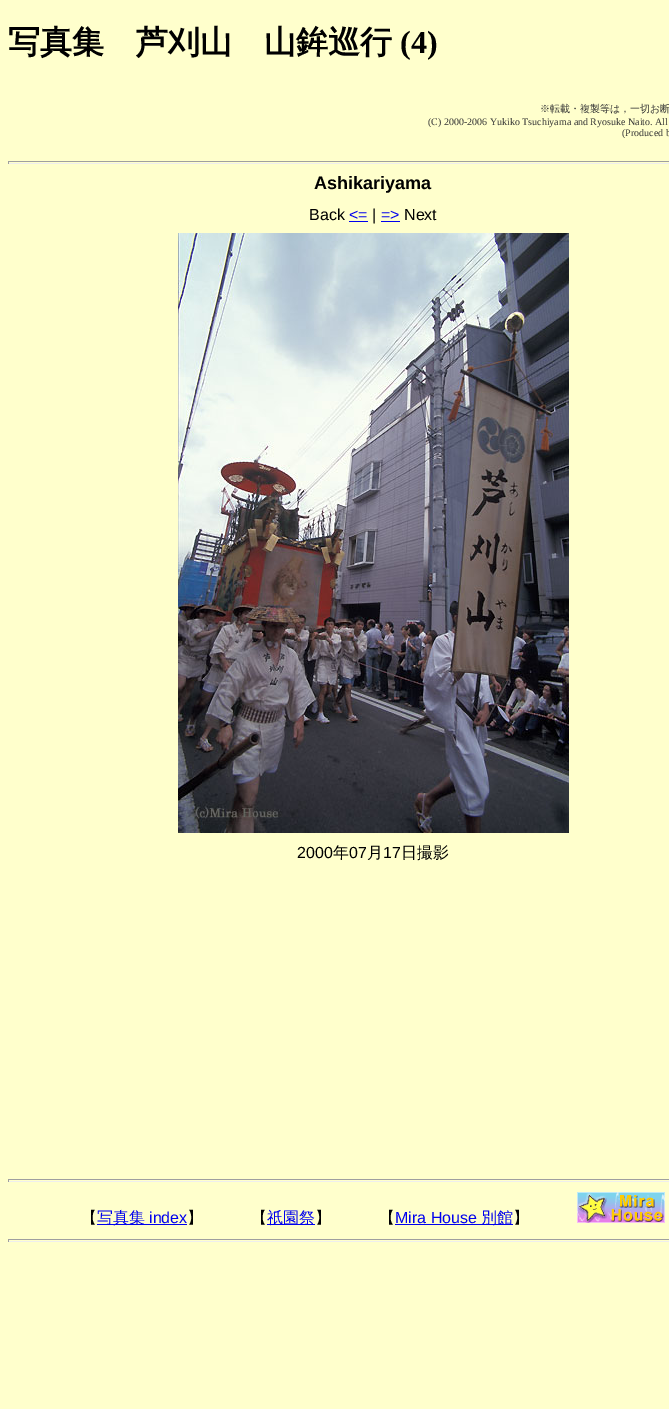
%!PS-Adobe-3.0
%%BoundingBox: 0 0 669 1409
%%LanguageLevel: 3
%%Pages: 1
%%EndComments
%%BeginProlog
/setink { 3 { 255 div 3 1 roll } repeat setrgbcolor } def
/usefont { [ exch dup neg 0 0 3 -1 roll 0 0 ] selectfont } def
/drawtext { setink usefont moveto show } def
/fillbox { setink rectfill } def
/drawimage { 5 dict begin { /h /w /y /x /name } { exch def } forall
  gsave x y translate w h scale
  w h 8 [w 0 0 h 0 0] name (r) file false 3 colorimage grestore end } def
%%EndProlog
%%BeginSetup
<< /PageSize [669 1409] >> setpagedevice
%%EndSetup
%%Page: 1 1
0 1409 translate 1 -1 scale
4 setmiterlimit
0 0 669 1409 255 255 204 fillbox
(写真集　芦刈山　山鉾巡行) 8 53 /WenQuanYiZenHei-Bold 32 0 0 0 drawtext
(\(4\)) 400 53 /LiberationSerif-Bold 32 0 0 0 drawtext
(※転載・複製等は，一切お断) 540 112 /WenQuanYiZenHei-Medium 10 51 51 51 drawtext
(\(C\) 2000-2006 Yukiko Tsuchiyama and Ryosuke Naito. All) 428 125 /LiberationSerif-Regular 10 51 51 51 drawtext
(\(Produced b) 622 136 /LiberationSerif-Regular 10 51 51 51 drawtext
8 161 661 1 159 159 159 fillbox
8 163 661 1 238 238 238 fillbox
8 161 1 3 159 159 159 fillbox
(Ashikariyama) 314 189 /LiberationSans-Bold 18 0 0 0 drawtext
(Back) 309 220 /LiberationSans-Regular 16 0 0 0 drawtext
(<=) 349 220 /LiberationSans-Regular 16 0 0 238 drawtext
349 221 19 1 0 0 238 fillbox
(|) 372 220 /LiberationSans-Regular 16 0 0 0 drawtext
(=>) 381 220 /LiberationSans-Regular 16 0 0 238 drawtext
381 221 19 1 0 0 238 fillbox
(Next) 404 220 /LiberationSans-Regular 16 0 0 0 drawtext
(assets/img1.rgb) 178 233 391 600 drawimage
(2000) 297 858 /LiberationSans-Regular 16 0 0 0 drawtext
(年) 333 858 /WenQuanYiZenHei-Medium 16 0 0 0 drawtext
(07) 349 858 /LiberationSans-Regular 16 0 0 0 drawtext
(月) 367 858 /WenQuanYiZenHei-Medium 16 0 0 0 drawtext
(17) 383 858 /LiberationSans-Regular 16 0 0 0 drawtext
(日撮影) 401 858 /WenQuanYiZenHei-Medium 16 0 0 0 drawtext
8 1179 661 1 159 159 159 fillbox
8 1181 661 1 238 238 238 fillbox
8 1179 1 3 159 159 159 fillbox
(【) 81 1223 /WenQuanYiZenHei-Medium 16 0 0 0 drawtext
97 1224 90 1 0 0 238 fillbox
(写真集) 97 1223 /WenQuanYiZenHei-Medium 16 0 0 238 drawtext
(index) 149 1223 /LiberationSans-Regular 16 0 0 238 drawtext
(】　　　【) 187 1223 /WenQuanYiZenHei-Medium 16 0 0 0 drawtext
267 1224 48 1 0 0 238 fillbox
(祇園祭) 267 1223 /WenQuanYiZenHei-Medium 16 0 0 238 drawtext
(】　　　【) 315 1223 /WenQuanYiZenHei-Medium 16 0 0 0 drawtext
(Mira House) 395 1223 /LiberationSans-Regular 16 0 0 238 drawtext
395 1224 118 1 0 0 238 fillbox
(別館) 481 1223 /WenQuanYiZenHei-Medium 16 0 0 238 drawtext
(】) 513 1223 /WenQuanYiZenHei-Medium 16 0 0 0 drawtext
(assets/img2.rgb) 577 1192 88 31 drawimage
8 1239 661 1 159 159 159 fillbox
8 1241 661 1 238 238 238 fillbox
8 1239 1 3 159 159 159 fillbox
showpage
%%EOF
